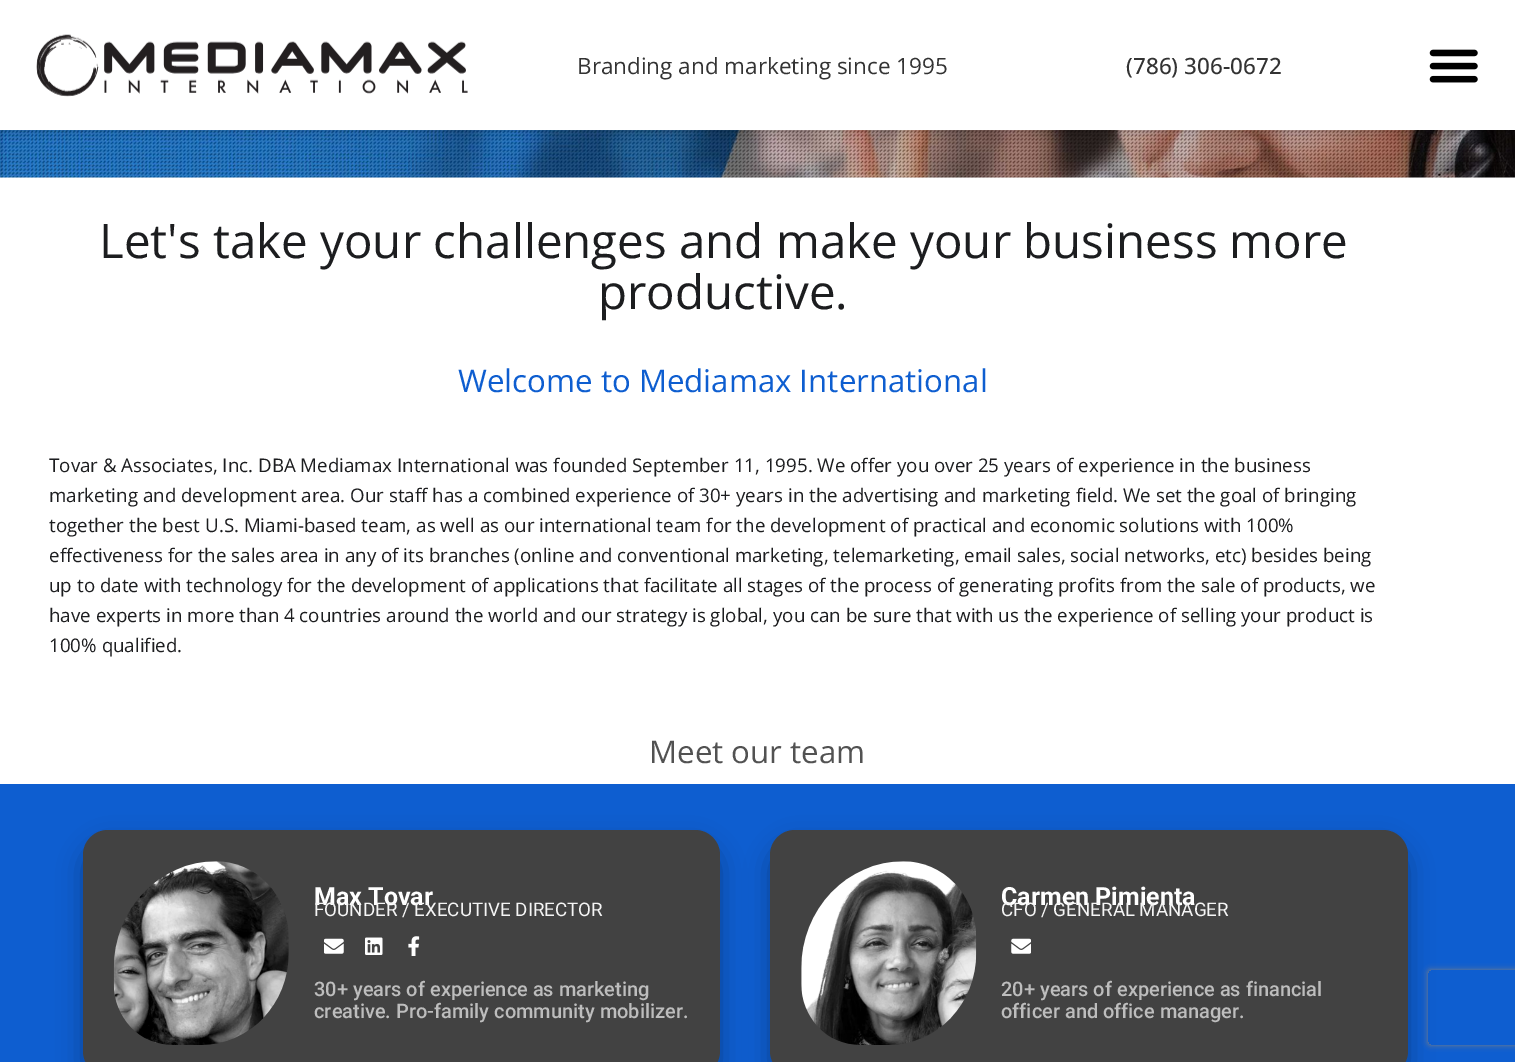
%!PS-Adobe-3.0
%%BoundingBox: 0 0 1515 1062
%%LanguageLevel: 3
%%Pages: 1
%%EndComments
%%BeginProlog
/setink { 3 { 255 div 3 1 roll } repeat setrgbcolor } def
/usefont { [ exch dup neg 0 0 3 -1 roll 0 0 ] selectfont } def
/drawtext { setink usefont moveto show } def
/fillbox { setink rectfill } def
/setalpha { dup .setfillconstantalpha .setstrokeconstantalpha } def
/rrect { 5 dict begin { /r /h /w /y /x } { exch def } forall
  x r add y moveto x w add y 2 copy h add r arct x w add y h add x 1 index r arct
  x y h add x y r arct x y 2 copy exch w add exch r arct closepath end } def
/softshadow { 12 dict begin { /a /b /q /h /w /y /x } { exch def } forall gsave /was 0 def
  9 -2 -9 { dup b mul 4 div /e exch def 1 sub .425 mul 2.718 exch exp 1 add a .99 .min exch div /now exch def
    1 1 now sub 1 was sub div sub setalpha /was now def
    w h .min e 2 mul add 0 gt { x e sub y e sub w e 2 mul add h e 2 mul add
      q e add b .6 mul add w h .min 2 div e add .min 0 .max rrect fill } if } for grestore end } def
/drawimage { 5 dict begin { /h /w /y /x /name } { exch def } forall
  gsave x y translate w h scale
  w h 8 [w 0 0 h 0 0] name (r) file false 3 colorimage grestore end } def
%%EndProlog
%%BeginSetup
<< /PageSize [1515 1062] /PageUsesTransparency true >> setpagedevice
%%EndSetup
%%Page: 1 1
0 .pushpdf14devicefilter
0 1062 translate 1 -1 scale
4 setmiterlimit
0 0 1515 1062 255 255 255 fillbox
(assets/img3.rgb) 0 130 1515 48 drawimage
0 0 0 setink
0 0 1515 130 0 6 0.24 softshadow
0 0 1515 130 255 255 255 fillbox
(assets/img1.rgb) 36 34 432 63 drawimage
(Branding and marketing since 1995) 577 74 /OpenSans-Regular 22.5 51 51 51 drawtext
(\(786\) 306-0672) 1126 74 /OpenSans-Medium 22.5 51 51 51 drawtext
(assets/img2.rgb) 1429 49 49 34 drawimage
(Let's take your challenges and make your business more) 99 258 /OpenSans-Regular 47.5 28 29 31 drawtext
(productive.) 598 309 /OpenSans-Regular 47.5 28 29 31 drawtext
(Welcome to Mediamax International) 458 392 /OpenSans-Regular 31.25 14 94 208 drawtext
(Tovar & Associates, Inc. DBA Mediamax International was founded September 11, 1995. We offer you over 25 years of experience in the business) 49 472 /OpenSans-Regular 18.75 28 29 31 drawtext
(marketing and development area. Our staff has a combined experience of 30+ years in the advertising and marketing field. We set the goal of bringing) 49 502 /OpenSans-Regular 18.75 28 29 31 drawtext
(together the best U.S. Miami-based team, as well as our international team for the development of practical and economic solutions with 100%) 49 532 /OpenSans-Regular 18.75 28 29 31 drawtext
(effectiveness for the sales area in any of its branches \(online and conventional marketing, telemarketing, email sales, social networks, etc\) besides being) 49 562 /OpenSans-Regular 18.75 28 29 31 drawtext
(up to date with technology for the development of applications that facilitate all stages of the process of generating profits from the sale of products, we) 49 592 /OpenSans-Regular 18.75 28 29 31 drawtext
(have experts in more than 4 countries around the world and our strategy is global, you can be sure that with us the experience of selling your product is) 49 622 /OpenSans-Regular 18.75 28 29 31 drawtext
(100% qualified.) 49 652 /OpenSans-Regular 18.75 28 29 31 drawtext
(Meet our team) 649 763 /OpenSans-Regular 31.25 82 82 82 drawtext
0 784 1515 278 14 94 208 fillbox
0 0 0 setink
83 843 637 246 25 12.5 0.3 softshadow
66 66 66 setink
83 830 637 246 25 rrect fill
(assets/img4.rgb) 113 861 176 184 drawimage
(Max Tovar) 314 905 /Roboto-Bold 25 255 255 255 drawtext
(FOUNDER / EXECUTIVE DIRECTOR) 314 916 /Roboto-Regular 18.75 245 245 245 drawtext
(assets/img5.rgb) 324 938 20 16 drawimage
(assets/img6.rgb) 365 937 18 18 drawimage
(assets/img7.rgb) 408 936 12 20 drawimage
(30+ years of experience as marketing) 314 996 /Roboto-Medium 20 189 189 189 drawtext
(creative. Pro-family community mobilizer.) 314 1018 /Roboto-Medium 20 189 189 189 drawtext
0 0 0 setink
770 843 638 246 25 12.5 0.3 softshadow
66 66 66 setink
770 830 638 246 25 rrect fill
(assets/img8.rgb) 801 861 176 184 drawimage
(Carmen Pimienta) 1001 905 /Roboto-Bold 25 255 255 255 drawtext
(CFO / GENERAL MANAGER) 1001 916 /Roboto-Regular 18.75 245 245 245 drawtext
(assets/img9.rgb) 1011 938 20 16 drawimage
(20+ years of experience as financial) 1001 996 /Roboto-Medium 20 189 189 189 drawtext
(officer and office manager.) 1001 1018 /Roboto-Medium 20 189 189 189 drawtext
gsave
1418 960 moveto 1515 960 lineto 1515 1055 lineto 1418 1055 lineto closepath 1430.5 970 moveto 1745.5 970 lineto 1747 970 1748 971 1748 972.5 curveto 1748 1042.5 lineto 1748 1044 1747 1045 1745.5 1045 curveto 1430.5 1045 lineto 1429 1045 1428 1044 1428 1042.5 curveto 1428 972.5 lineto 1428 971 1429 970 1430.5 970 curveto closepath eoclip newpath
128 128 128 setink
1428 970 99 75 2.5 3 1 softshadow
grestore
.poppdf14devicefilter showpage
%%EOF
